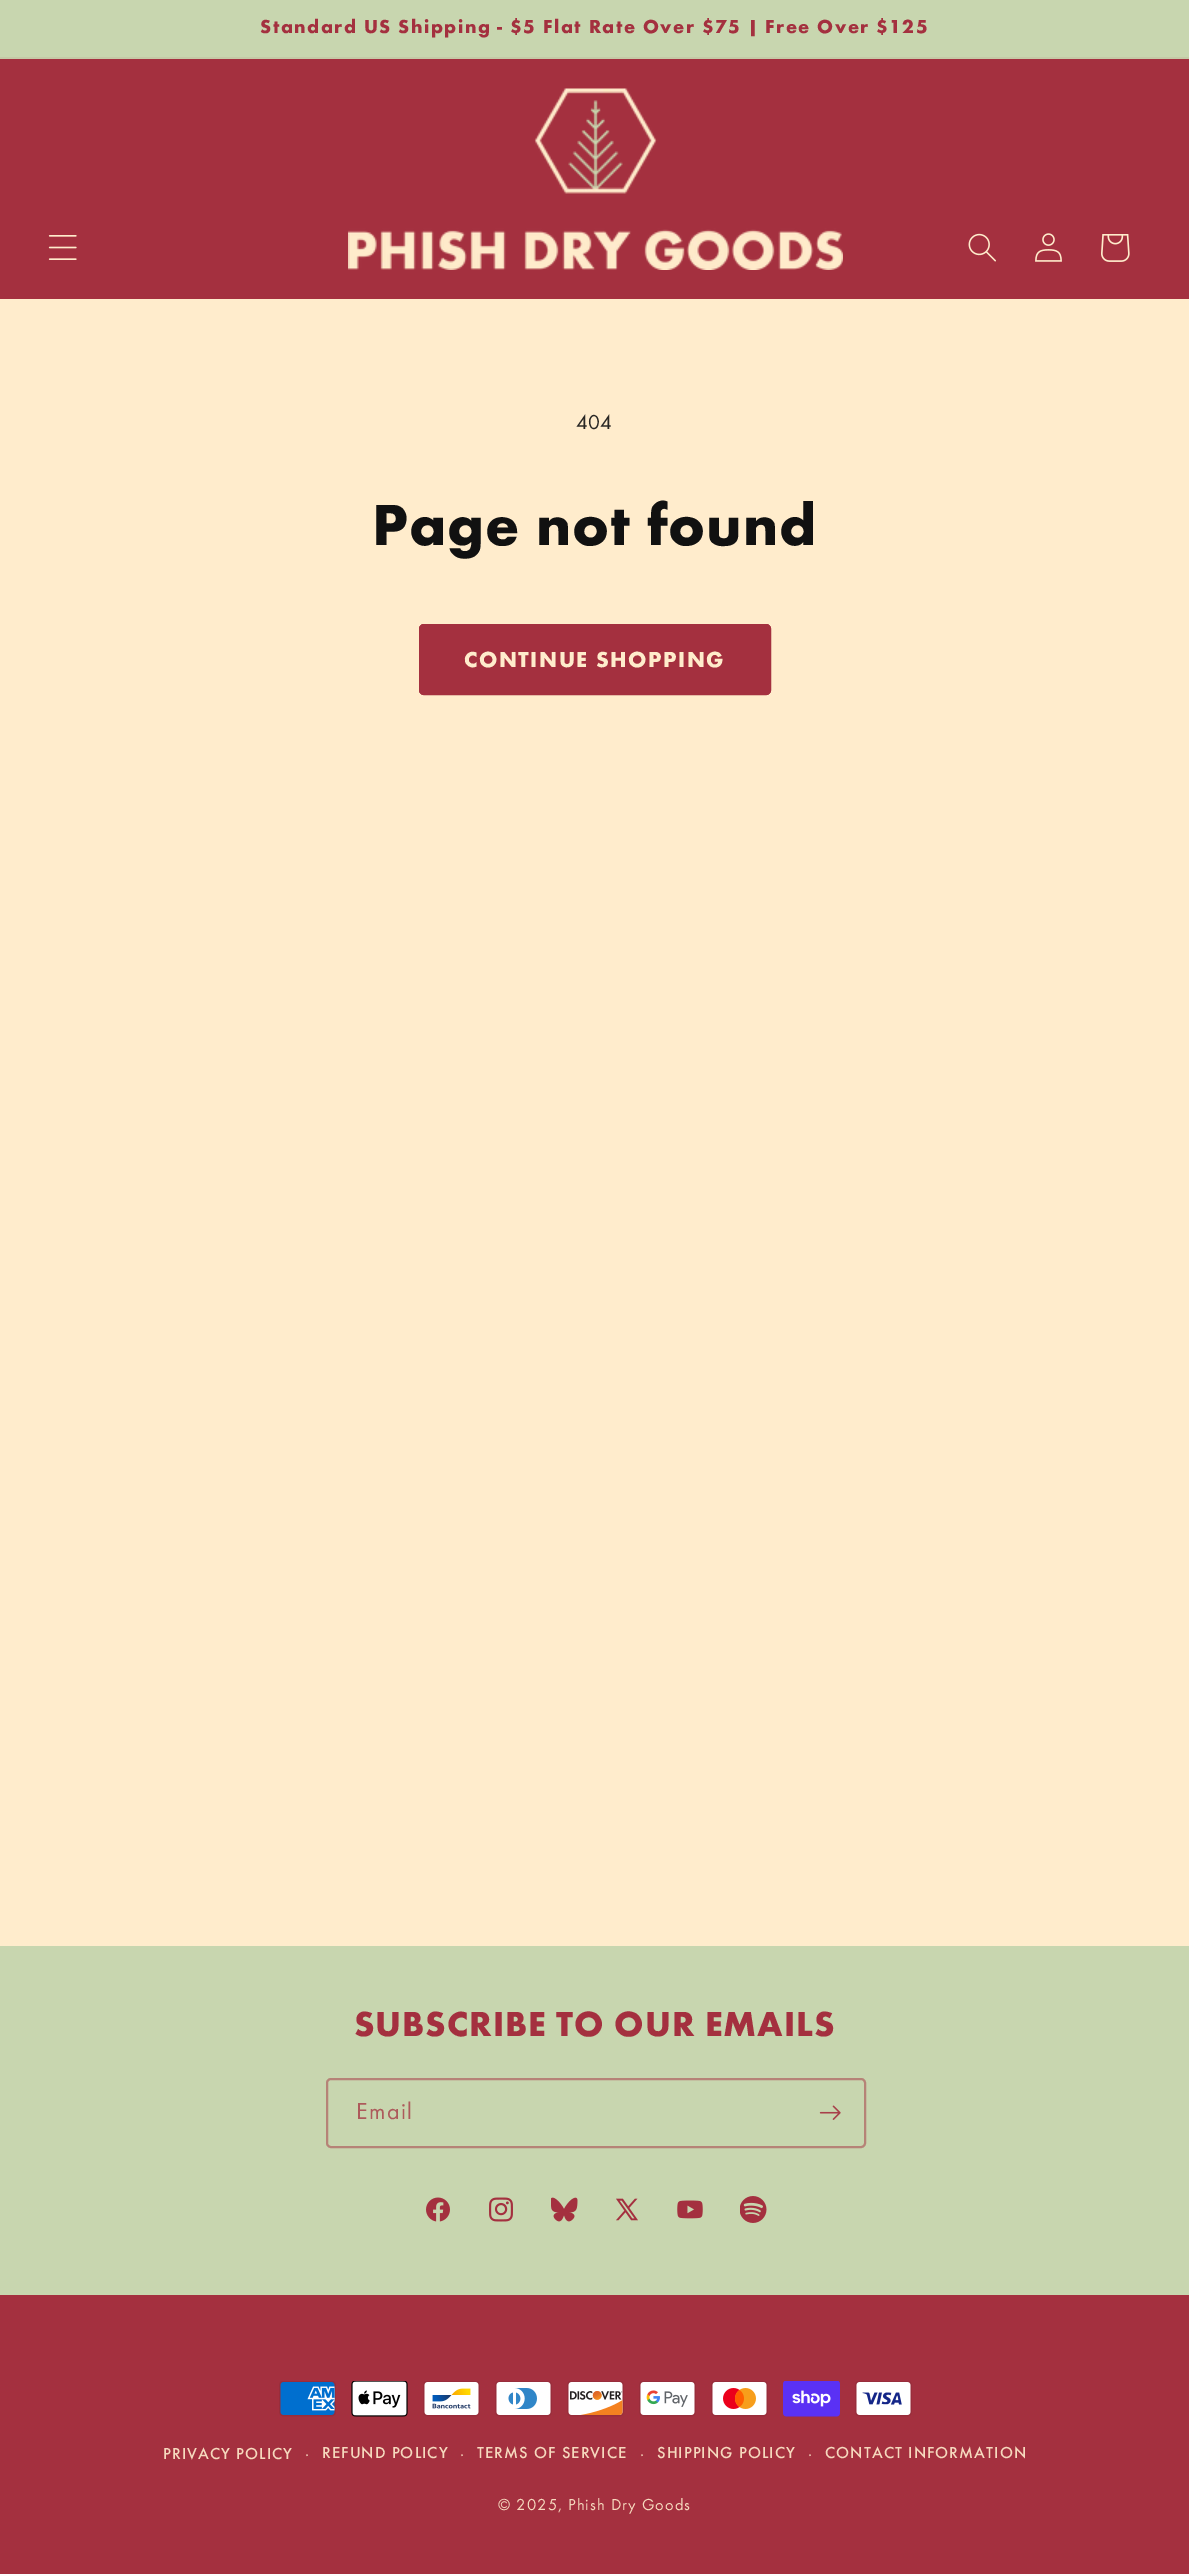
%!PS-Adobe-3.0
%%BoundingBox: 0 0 1189 2574
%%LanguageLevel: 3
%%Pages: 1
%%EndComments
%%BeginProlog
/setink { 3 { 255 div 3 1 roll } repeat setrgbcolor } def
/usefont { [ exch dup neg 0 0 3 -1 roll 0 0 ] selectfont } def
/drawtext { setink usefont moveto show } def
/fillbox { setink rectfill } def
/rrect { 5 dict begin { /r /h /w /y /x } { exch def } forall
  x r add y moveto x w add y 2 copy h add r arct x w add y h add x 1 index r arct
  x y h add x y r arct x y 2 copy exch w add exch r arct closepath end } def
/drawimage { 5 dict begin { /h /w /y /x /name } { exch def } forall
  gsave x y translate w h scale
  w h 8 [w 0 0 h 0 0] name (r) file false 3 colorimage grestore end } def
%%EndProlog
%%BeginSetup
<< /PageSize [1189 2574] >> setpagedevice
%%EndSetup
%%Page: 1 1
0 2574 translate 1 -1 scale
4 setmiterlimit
0 0 1189 2574 255 236 204 fillbox
0 0 1189 57 200 214 175 fillbox
0 57 1189 2 197 201 166 fillbox
/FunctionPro-Bold 19.5 usefont
164 48 63 setink
260 33 moveto 1.5 0 (Standard US Shipping - $5 Flat Rate Over $75 | Free Over $125) ashow
0 59 1189 240 164 48 63 fillbox
(assets/img1.rgb) 48 235 29 25 drawimage
(assets/img2.rgb) 348 88 495 182 drawimage
(assets/img3.rgb) 968 233 28 29 drawimage
(assets/img4.rgb) 1035 233 27 29 drawimage
(assets/img5.rgb) 1101 234 29 28 drawimage
(404) 576 429 /FunctionPro-Regular 21 41 39 36 drawtext
/FunctionPro-Bold 60 usefont
17 17 17 setink
372 545 moveto 0.9 0 (Page not found) ashow
164 48 63 setink
419 624 352 71 5 rrect fill
2 setlinewidth
420 625 350 69 4 rrect stroke
/FunctionPro-Bold 22.5 usefont
255 236 204 setink
464 667 moveto 1.5 0 (CONTINUE SHOPPING) ashow
0 1946 1189 349 200 214 175 fillbox
/FunctionPro-Bold 36 usefont
164 48 63 setink
354 2036 moveto 0.9 0 (SUBSCRIBE TO OUR EMAILS) ashow
182 131 119 setink
327 2079 538 68 4 rrect stroke
/FunctionPro-Regular 24 usefont
173 90 91 setink
356 2119 moveto 1.5 0 (Email) ashow
(assets/img6.rgb) 819 2105 22 15 drawimage
(assets/img7.rgb) 426 2197 24 25 drawimage
(assets/img8.rgb) 489 2197 24 25 drawimage
(assets/img9.rgb) 551 2197 27 25 drawimage
(assets/img10.rgb) 616 2198 22 23 drawimage
(assets/img11.rgb) 677 2200 26 19 drawimage
(assets/img12.rgb) 740 2196 27 27 drawimage
0 2295 1189 279 164 48 63 fillbox
(assets/img13.rgb) 279 2381 57 36 drawimage
(assets/img14.rgb) 351 2381 57 36 drawimage
(assets/img15.rgb) 423 2381 57 36 drawimage
(assets/img16.rgb) 495 2381 57 36 drawimage
(assets/img17.rgb) 567 2381 57 36 drawimage
(assets/img18.rgb) 639 2381 57 36 drawimage
(assets/img19.rgb) 711 2381 57 36 drawimage
(assets/img20.rgb) 783 2381 57 36 drawimage
(assets/img21.rgb) 855 2381 57 36 drawimage
/FunctionPro-Medium 16.5 usefont
246 217 190 setink
163 2459 moveto 1.05 0 (PRIVACY POLICY) ashow
/FunctionPro-Regular 18 usefont
305 2459 moveto 1.05 0 (·) ashow
/FunctionPro-Medium 16.5 usefont
322 2458 moveto 1.05 0 (REFUND POLICY) ashow
/FunctionPro-Regular 18 usefont
460 2459 moveto 1.05 0 (·) ashow
/FunctionPro-Medium 16.5 usefont
477 2458 moveto 1.05 0 (TERMS OF SERVICE) ashow
/FunctionPro-Regular 18 usefont
640 2459 moveto 1.05 0 (·) ashow
/FunctionPro-Medium 16.5 usefont
657 2458 moveto 1.05 0 (SHIPPING POLICY) ashow
/FunctionPro-Regular 18 usefont
808 2459 moveto 1.05 0 (·) ashow
/FunctionPro-Medium 16.5 usefont
825 2458 moveto 1.05 0 (CONTACT INFORMATION) ashow
/FunctionPro-Regular 16.5 usefont
498 2510 moveto 1.05 0 (© 2025, Phish Dry Goods) ashow
showpage
%%EOF
